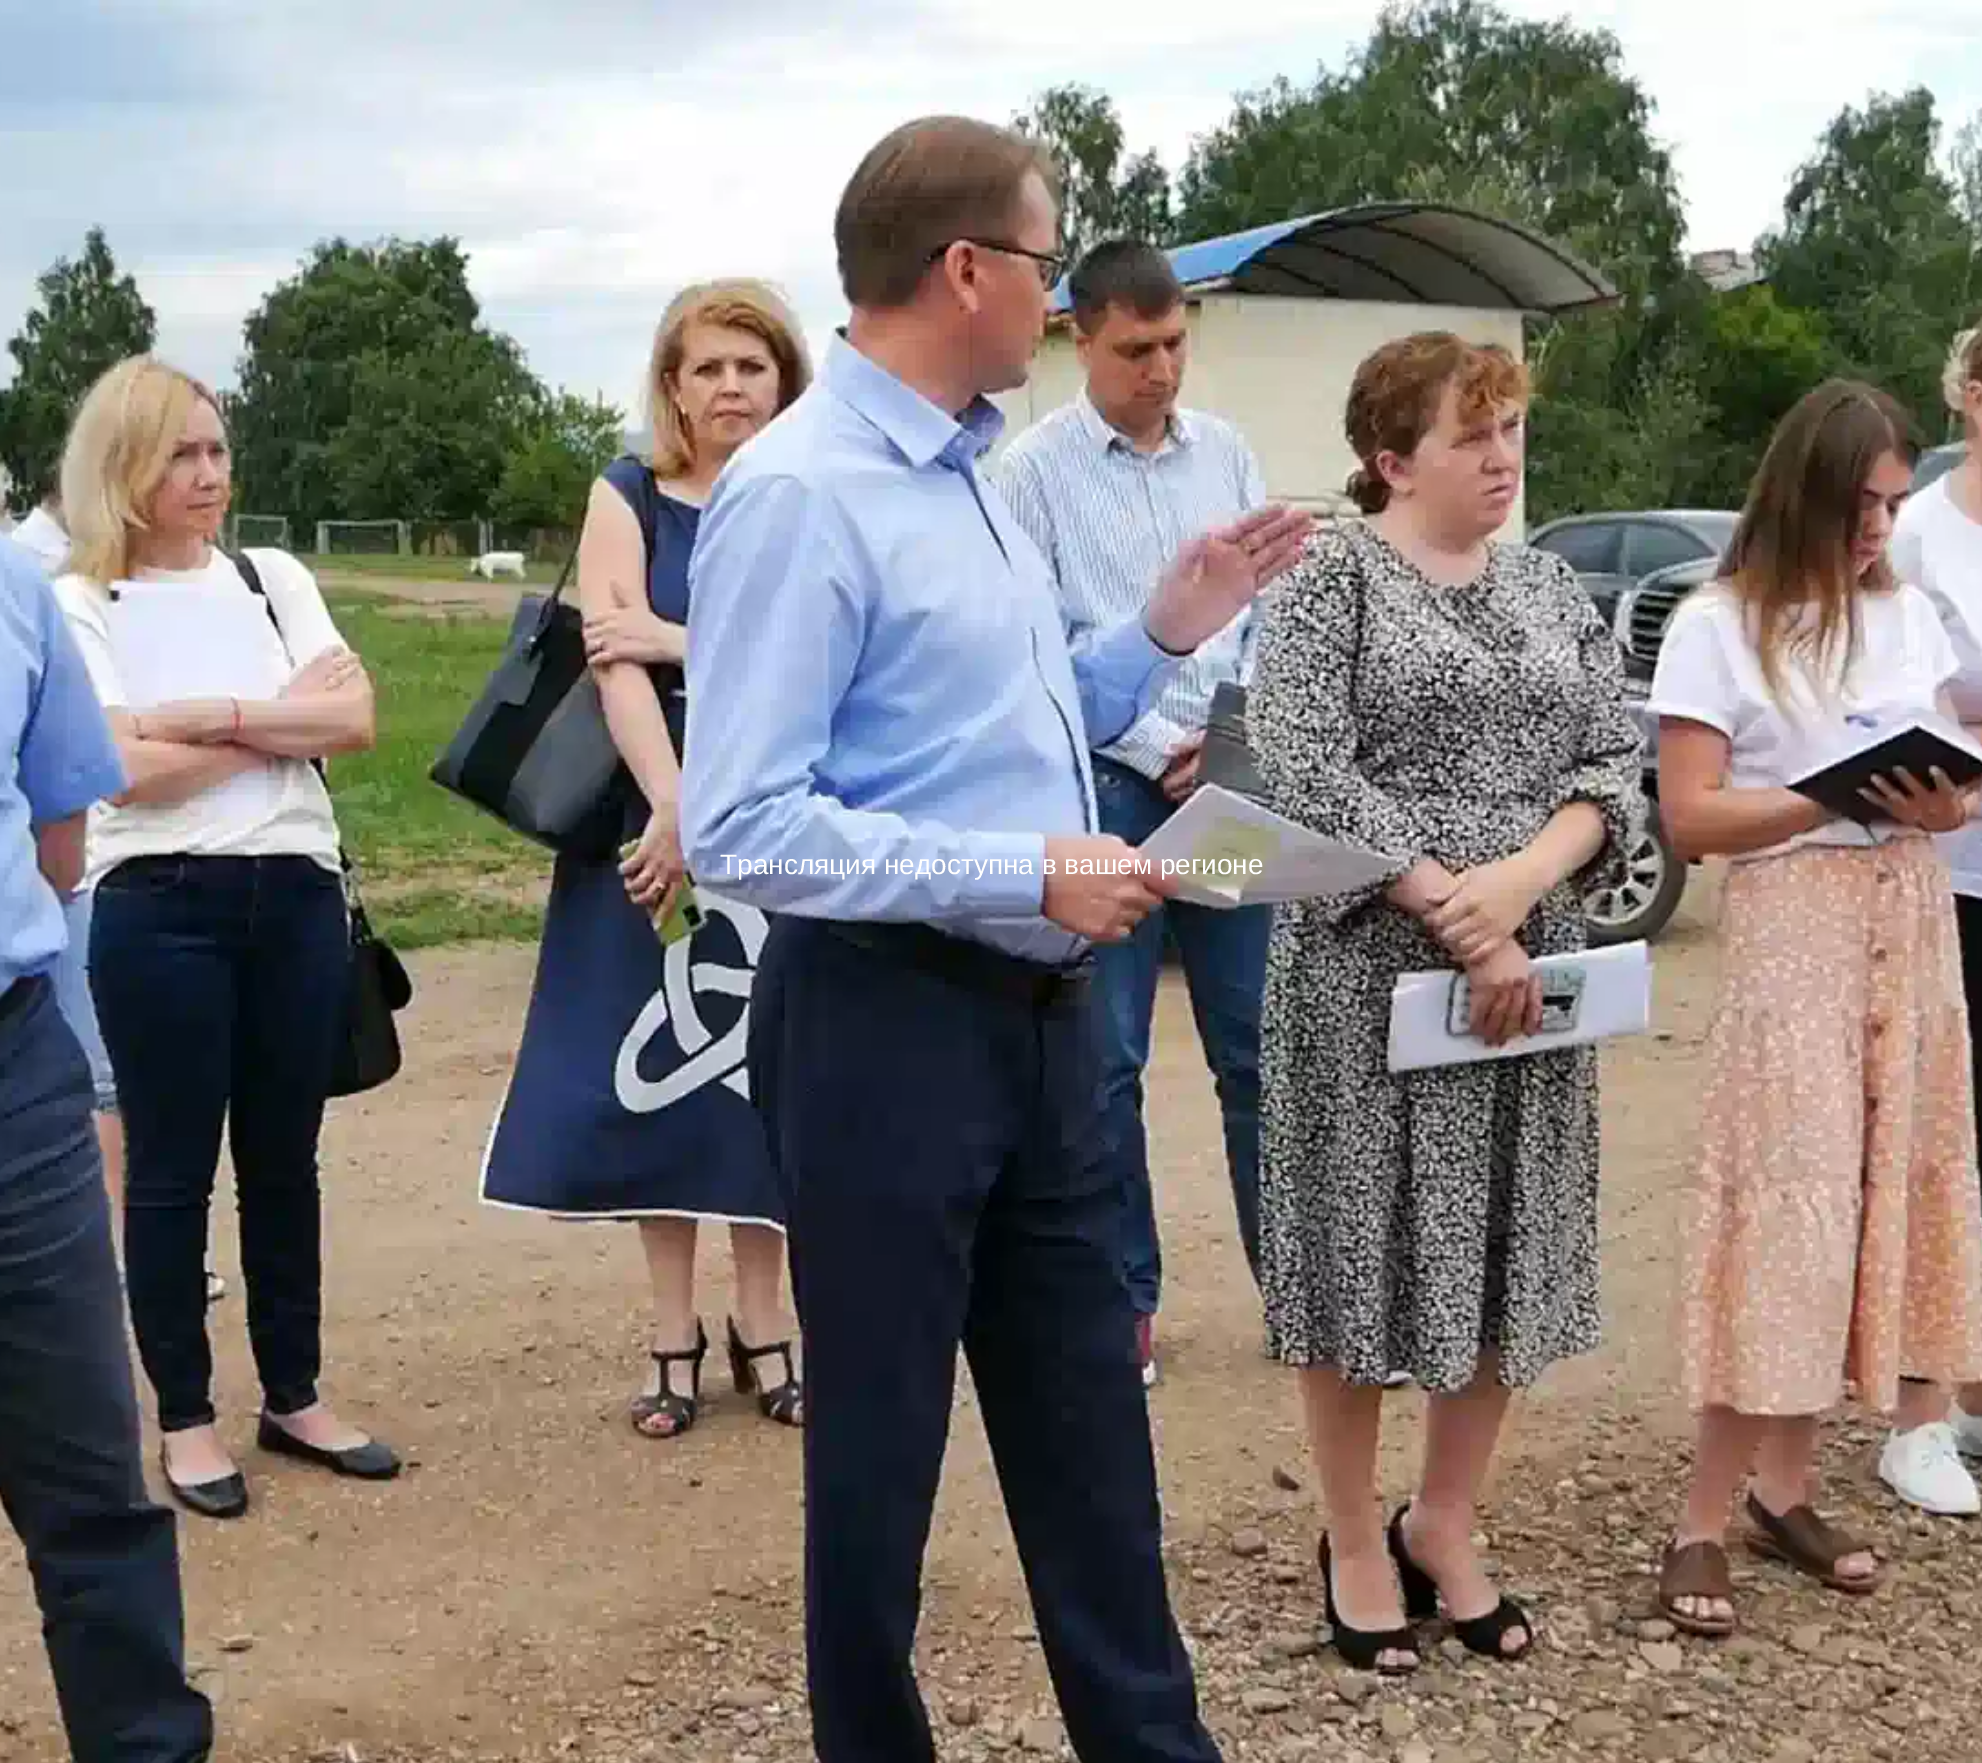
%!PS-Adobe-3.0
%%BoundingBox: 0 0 1982 1763
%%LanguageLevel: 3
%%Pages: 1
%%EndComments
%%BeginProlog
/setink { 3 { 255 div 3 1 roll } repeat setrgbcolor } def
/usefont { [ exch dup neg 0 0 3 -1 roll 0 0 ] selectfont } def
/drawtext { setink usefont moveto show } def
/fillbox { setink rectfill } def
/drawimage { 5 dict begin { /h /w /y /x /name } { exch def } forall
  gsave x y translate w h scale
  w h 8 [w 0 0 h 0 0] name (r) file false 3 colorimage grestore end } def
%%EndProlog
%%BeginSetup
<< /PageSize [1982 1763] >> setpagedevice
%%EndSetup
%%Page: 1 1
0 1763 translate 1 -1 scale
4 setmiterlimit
0 0 1982 1763 255 255 255 fillbox
(assets/img1.rgb) 0 0 1982 1763 drawimage
(Трансляция недоступна в вашем регионе) 720 874 /LiberationSans-Regular 28 255 255 255 drawtext
showpage
%%EOF
